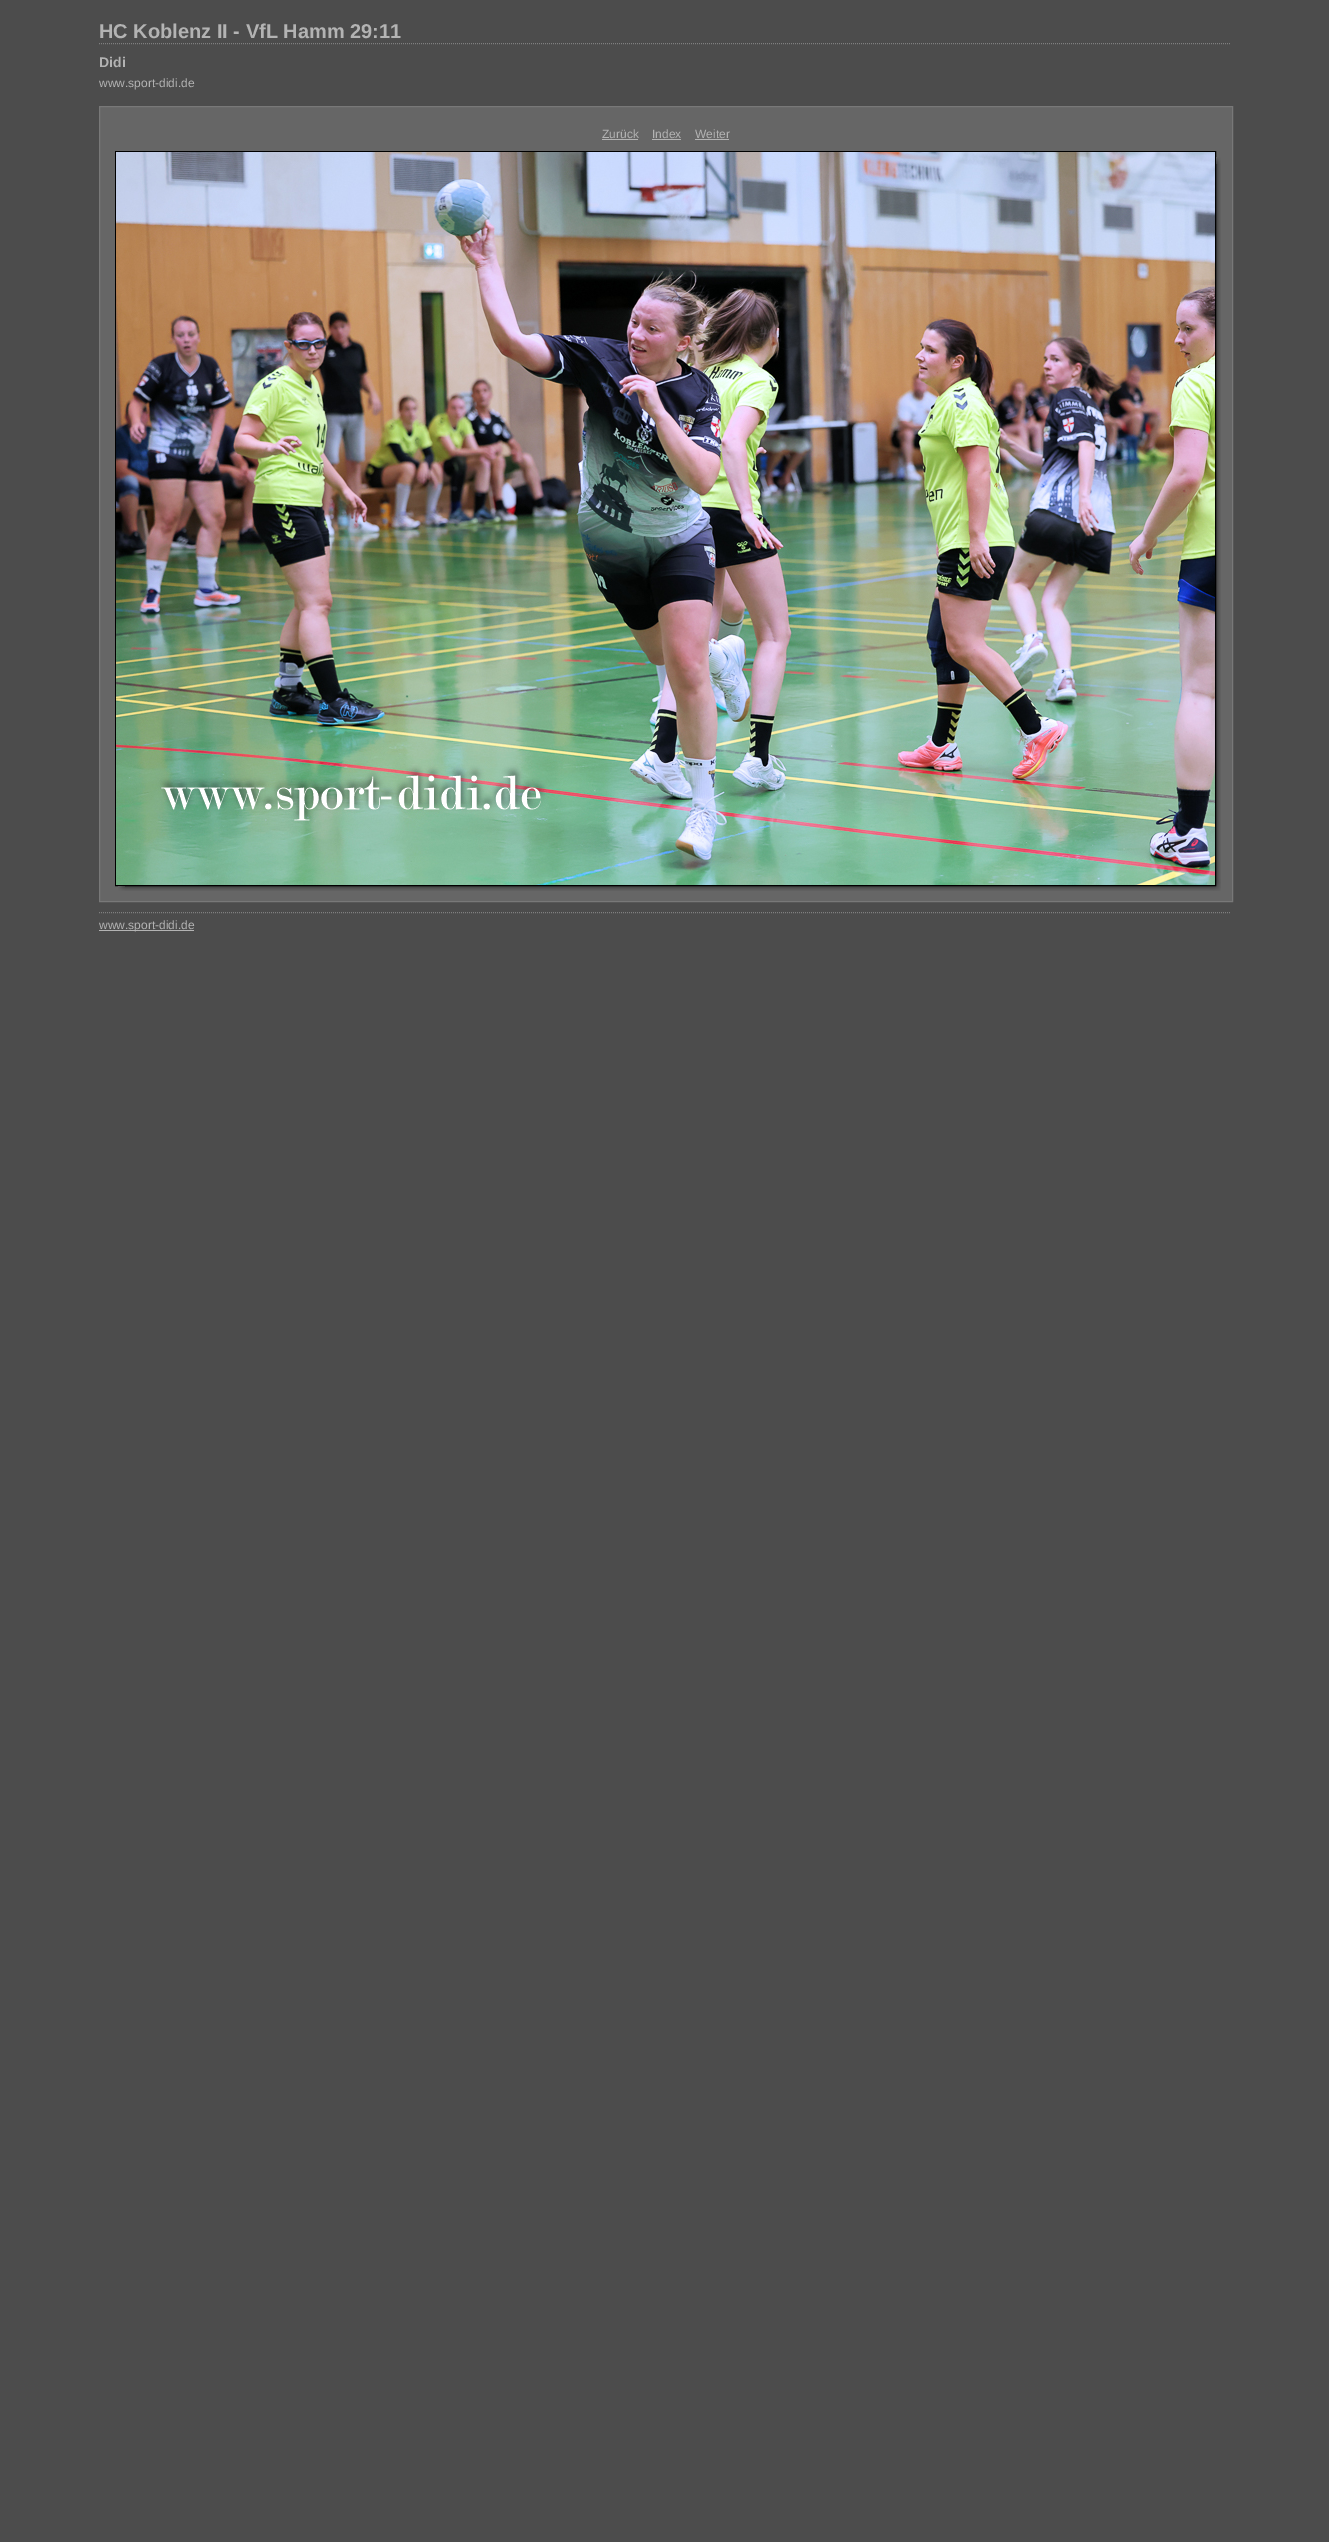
%!PS-Adobe-3.0
%%BoundingBox: 0 0 1329 2542
%%LanguageLevel: 3
%%Pages: 1
%%EndComments
%%BeginProlog
/setink { 3 { 255 div 3 1 roll } repeat setrgbcolor } def
/usefont { [ exch dup neg 0 0 3 -1 roll 0 0 ] selectfont } def
/drawtext { setink usefont moveto show } def
/fillbox { setink rectfill } def
/drawimage { 5 dict begin { /h /w /y /x /name } { exch def } forall
  gsave x y translate w h scale
  w h 8 [w 0 0 h 0 0] name (r) file false 3 colorimage grestore end } def
%%EndProlog
%%BeginSetup
<< /PageSize [1329 2542] >> setpagedevice
%%EndSetup
%%Page: 1 1
0 2542 translate 1 -1 scale
4 setmiterlimit
0 0 1329 2542 76 76 76 fillbox
127 127 127 setink
[1 1] 0 setdash
99 43.5 moveto 1231 43.5 lineto stroke
(HC Koblenz II - VfL Hamm 29:11) 99 38 /LiberationSans-Bold 20 179 179 179 drawtext
(Didi) 99 67 /LiberationSans-Bold 14 179 179 179 drawtext
(www.sport-didi.de) 99 87 /LiberationSans-Regular 12 179 179 179 drawtext
127 127 127 setink
99 912.5 moveto 1231 912.5 lineto stroke
102 102 102 setink
99.5 106.5 moveto 1232.5 106.5 lineto 1232.5 901.5 lineto 99.5 901.5 lineto closepath gsave fill grestore
120 120 120 setink
[] 0 setdash
stroke
(Zurück) 602 138 /LiberationSans-Regular 12 179 179 179 drawtext
602 139 36 1 179 179 179 fillbox
(Index) 652 138 /LiberationSans-Regular 12 179 179 179 drawtext
652 139 29 1 179 179 179 fillbox
(Weiter) 695 138 /LiberationSans-Regular 12 179 179 179 drawtext
695 139 34 1 179 179 179 fillbox
(assets/img1.rgb) 125 164 1096 727 drawimage
0 0 0 setink
115.5 151.5 1100 734 rectstroke
(assets/img2.rgb) 116 152 1099 733 drawimage
(assets/img3.rgb) 1216 157 5 7 drawimage
(assets/img4.rgb) 118 886 7 5 drawimage
99 930 95 1 179 179 179 fillbox
(www.sport-didi.de) 99 929 /LiberationSans-Regular 12 179 179 179 drawtext
showpage
%%EOF
